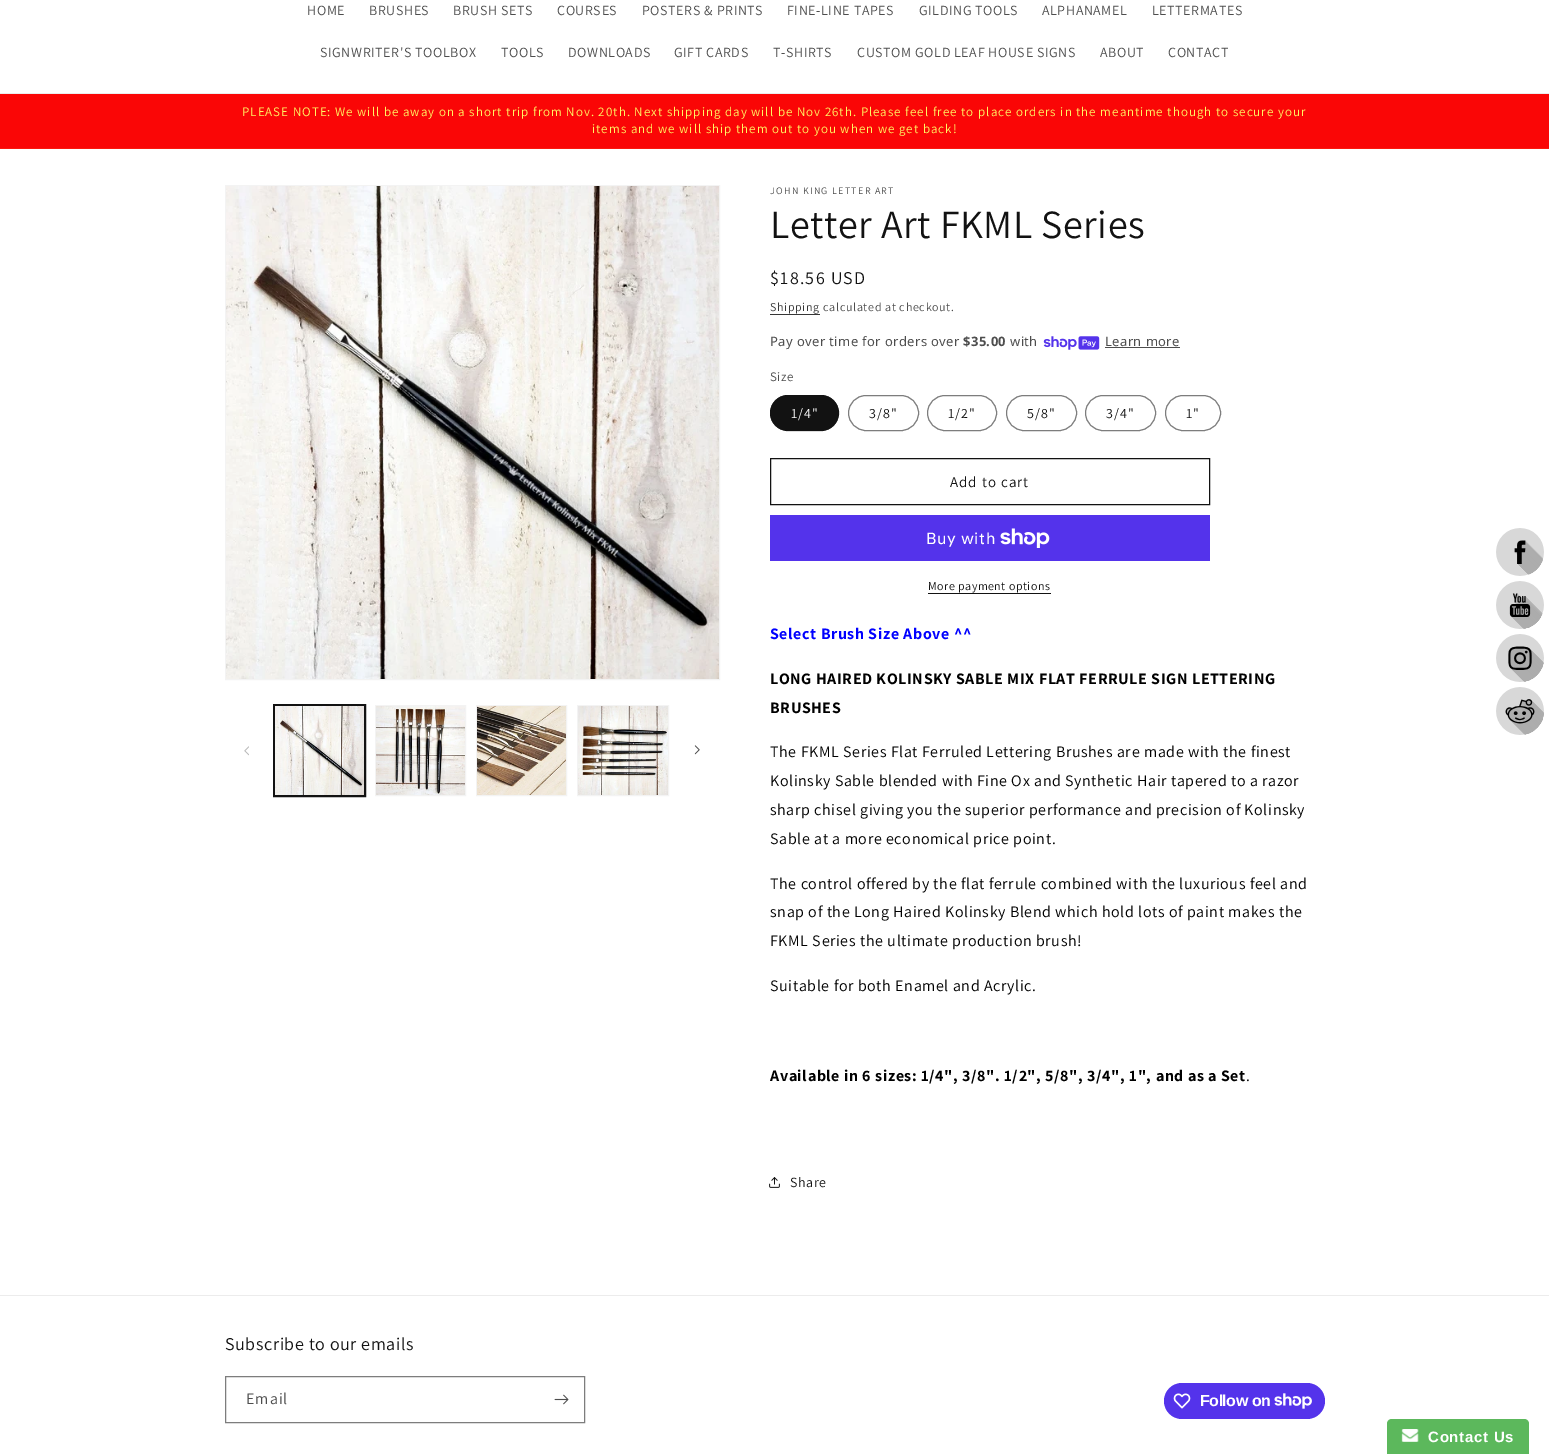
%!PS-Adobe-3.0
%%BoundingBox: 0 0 1549 1454
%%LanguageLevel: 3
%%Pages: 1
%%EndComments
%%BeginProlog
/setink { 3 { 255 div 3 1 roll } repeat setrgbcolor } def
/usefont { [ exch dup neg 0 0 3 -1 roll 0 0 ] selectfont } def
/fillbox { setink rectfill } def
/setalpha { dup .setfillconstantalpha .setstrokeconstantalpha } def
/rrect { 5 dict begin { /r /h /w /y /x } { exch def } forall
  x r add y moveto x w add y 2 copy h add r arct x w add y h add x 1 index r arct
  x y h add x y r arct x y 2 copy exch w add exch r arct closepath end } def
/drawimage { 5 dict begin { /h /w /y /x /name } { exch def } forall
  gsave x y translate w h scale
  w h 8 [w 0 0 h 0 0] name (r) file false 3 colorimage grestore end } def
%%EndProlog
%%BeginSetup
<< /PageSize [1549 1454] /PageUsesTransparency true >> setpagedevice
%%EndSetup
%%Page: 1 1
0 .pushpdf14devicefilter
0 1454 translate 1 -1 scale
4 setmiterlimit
0 0 1549 1454 255 255 255 fillbox
0 93 1549 1 236 236 236 fillbox
/Assistant-Regular 14 usefont
77 77 77 setink
307 15 moveto 0.6 0 (HOME) ashow
369 15 moveto 0.6 0 (BRUSHES) ashow
453 15 moveto 0.6 0 (BRUSH SETS) ashow
557 15 moveto 0.6 0 (COURSES) ashow
642 15 moveto 0.6 0 (POSTERS & PRINTS) ashow
787 15 moveto 0.6 0 (FINE-LINE TAPES) ashow
919 15 moveto 0.6 0 (GILDING TOOLS) ashow
1042 15 moveto 0.6 0 (ALPHANAMEL) ashow
1152 15 moveto 0.6 0 (LETTERMATES) ashow
320 57 moveto 0.6 0 (SIGNWRITER'S TOOLBOX) ashow
501 57 moveto 0.6 0 (TOOLS) ashow
568 57 moveto 0.6 0 (DOWNLOADS) ashow
674 57 moveto 0.6 0 (GIFT CARDS) ashow
773 57 moveto 0.6 0 (T-SHIRTS) ashow
857 57 moveto 0.6 0 (CUSTOM GOLD LEAF HOUSE SIGNS) ashow
1100 57 moveto 0.6 0 (ABOUT) ashow
1168 57 moveto 0.6 0 (CONTACT) ashow
0 94 1549 54 250 6 6 fillbox
0 148 1549 1 250 25 13 fillbox
/Assistant-Regular 13 usefont
255 246 99 setink
242 116 moveto 1 0 (PLEASE NOTE: We will be away on a short trip from Nov. 20th. Next shipping day will be Nov 26th. Please feel free to place orders in the meantime though to secure your) ashow
592 133 moveto 1 0 (items and we will ship them out to you when we get back!) ashow
243 243 243 setink
225.5 185.5 494 494 rectstroke
(assets/img1.rgb) 226 186 493 493 drawimage
(assets/img2.rgb) 244 746 5 10 drawimage
18 18 18 setink
273.5 704.5 92 92 rectstroke
274.5 705.5 90 90 rectstroke
(assets/img3.rgb) 275 706 89 89 drawimage
243 243 243 setink
375.5 705.5 90 90 rectstroke
(assets/img4.rgb) 376 706 89 89 drawimage
476.5 705.5 90 90 rectstroke
(assets/img5.rgb) 477 706 89 89 drawimage
577.5 705.5 91 90 rectstroke
(assets/img6.rgb) 578 706 90 89 drawimage
(assets/img7.rgb) 694 745 6 10 drawimage
/Assistant-Regular 10 usefont
77 77 77 setink
770 194 moveto 1.3 0 (JOHN KING LETTER ART) ashow
/Assistant-Regular 40 usefont
18 18 18 setink
770 238 moveto 0.6 0 (Letter Art FKML Series) ashow
/Assistant-Regular 18 usefont
770 284 moveto 1.3 0 ($18.56 USD) ashow
/Assistant-Regular 12 usefont
54 54 54 setink
770 311 moveto 0.7 0 (Shipping) ashow
770 314 50 1 54 54 54 fillbox
77 77 77 setink
823 311 moveto 0.7 0 (calculated at checkout.) ashow
/NotoSans-Regular 13 usefont
770 346 moveto 0.4 0 (Pay over time for orders over) ashow
/NotoSans-Bold 13 usefont
963 346 moveto 0.4 0 ($35.00) ashow
/NotoSans-Regular 13 usefont
1010 346 moveto 0.4 0 (with) ashow
(assets/img8.rgb) 1043 336 57 14 drawimage
1105 346 moveto 0.4 0 (Learn more) ashow
1105 347 75 1 77 77 77 fillbox
/Assistant-Regular 13 usefont
770 381 moveto 0.4 0 (Size) ashow
18 18 18 setink
770 395 69 36 18 rrect fill
0.55 setalpha
770.5 395.5 68 35 17.5 rrect stroke
/Assistant-Regular 14 usefont
1 setalpha
255 255 255 setink
791 418 moveto 1 0 (1/4") ashow
125 125 125 setink
848.5 395.5 70 35 17.5 rrect stroke
18 18 18 setink
869 418 moveto 1 0 (3/8") ashow
125 125 125 setink
927.5 395.5 69 35 17.5 rrect stroke
18 18 18 setink
948 418 moveto 1 0 (1/2") ashow
125 125 125 setink
1006.5 395.5 70 35 17.5 rrect stroke
18 18 18 setink
1027 418 moveto 1 0 (5/8") ashow
125 125 125 setink
1085.5 395.5 70 35 17.5 rrect stroke
18 18 18 setink
1106 418 moveto 1 0 (3/4") ashow
125 125 125 setink
1165.5 395.5 55 35 17.5 rrect stroke
18 18 18 setink
1186 418 moveto 1 0 (1") ashow
770.5 458.5 439 46 rectstroke
/Assistant-Regular 15 usefont
950 487 moveto 1 0 (Add to cart) ashow
770 515 440 46 84 51 235 fillbox
/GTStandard-Regular 16 usefont
255 255 255 setink
926 544 moveto 0.6 0 (Buy with) ashow
(assets/img9.rgb) 1000 528 50 20 drawimage
/Assistant-Regular 12 usefont
18 18 18 setink
928 590 moveto 0.5 0 (More payment options) ashow
928 593 123 1 18 18 18 fillbox
/Assistant-Bold 16 usefont
0 0 255 setink
770 639 moveto 0.6 0 (Select Brush Size Above ^^) ashow
0 0 0 setink
770 684 moveto 0.6 0 (LONG HAIRED KOLINSKY SABLE MIX FLAT FERRULE SIGN LETTERING) ashow
770 713 moveto 0.6 0 (BRUSHES) ashow
/Assistant-Regular 16 usefont
770 757 moveto 0.6 0 (The FKML Series Flat Ferruled Lettering Brushes are made with the finest) ashow
770 786 moveto 0.6 0 (Kolinsky Sable blended with Fine Ox and Synthetic Hair tapered to a razor) ashow
770 815 moveto 0.6 0 (sharp chisel giving you the superior performance and precision of Kolinsky) ashow
770 844 moveto 0.6 0 (Sable at a more economical price point.) ashow
770 889 moveto 0.6 0 (The control offered by the flat ferrule combined with the luxurious feel and) ashow
770 917 moveto 0.6 0 (snap of the Long Haired Kolinsky Blend which hold lots of paint makes the) ashow
770 946 moveto 0.6 0 (FKML Series the ultimate production brush!) ashow
770 991 moveto 0.6 0 (Suitable for both Enamel and Acrylic.) ashow
/Assistant-Bold 16 usefont
770 1081 moveto 0.6 0 (Available in 6 sizes: 1/4", 3/8". 1/2", 5/8", 3/4", 1", and as a Set) ashow
/Assistant-Regular 16 usefont
1246 1081 moveto 0.6 0 (.) ashow
(assets/img10.rgb) 769 1177 11 11 drawimage
/Assistant-Regular 14 usefont
18 18 18 setink
790 1187 moveto 0.6 0 (Share) ashow
(assets/img11.rgb) 1496 528 48 207 drawimage
0 1295 1549 1 236 236 236 fillbox
/Assistant-Regular 18 usefont
18 18 18 setink
225 1350 moveto 0.6 0 (Subscribe to our emails) ashow
125 125 125 setink
225.5 1376.5 359 46 rectstroke
/Assistant-Regular 16 usefont
77 77 77 setink
246 1404 moveto 1 0 (Email) ashow
(assets/img12.rgb) 554 1394 15 11 drawimage
84 51 235 setink
1164 1383 161 36 18 rrect fill
(assets/img13.rgb) 1173 1393 18 16 drawimage
/LiberationSans-Bold 16 usefont
255 255 255 setink
1200 1406 moveto -0.5 0 (Follow on) ashow
(assets/img14.rgb) 1274 1393 38 16 drawimage
92 184 92 setink
1392 1419 moveto 1524 1419 lineto 1527 1419 1529 1421 1529 1424 curveto 1529 1454 lineto 1387 1454 lineto 1387 1424 lineto 1387 1421 1389 1419 1392 1419 curveto closepath fill
(assets/img15.rgb) 1401 1429 18 13 drawimage
/LiberationSans-Bold 15 usefont
255 255 255 setink
1428 1442 moveto 0.7 0 (Contact Us) ashow
.poppdf14devicefilter showpage
%%EOF
